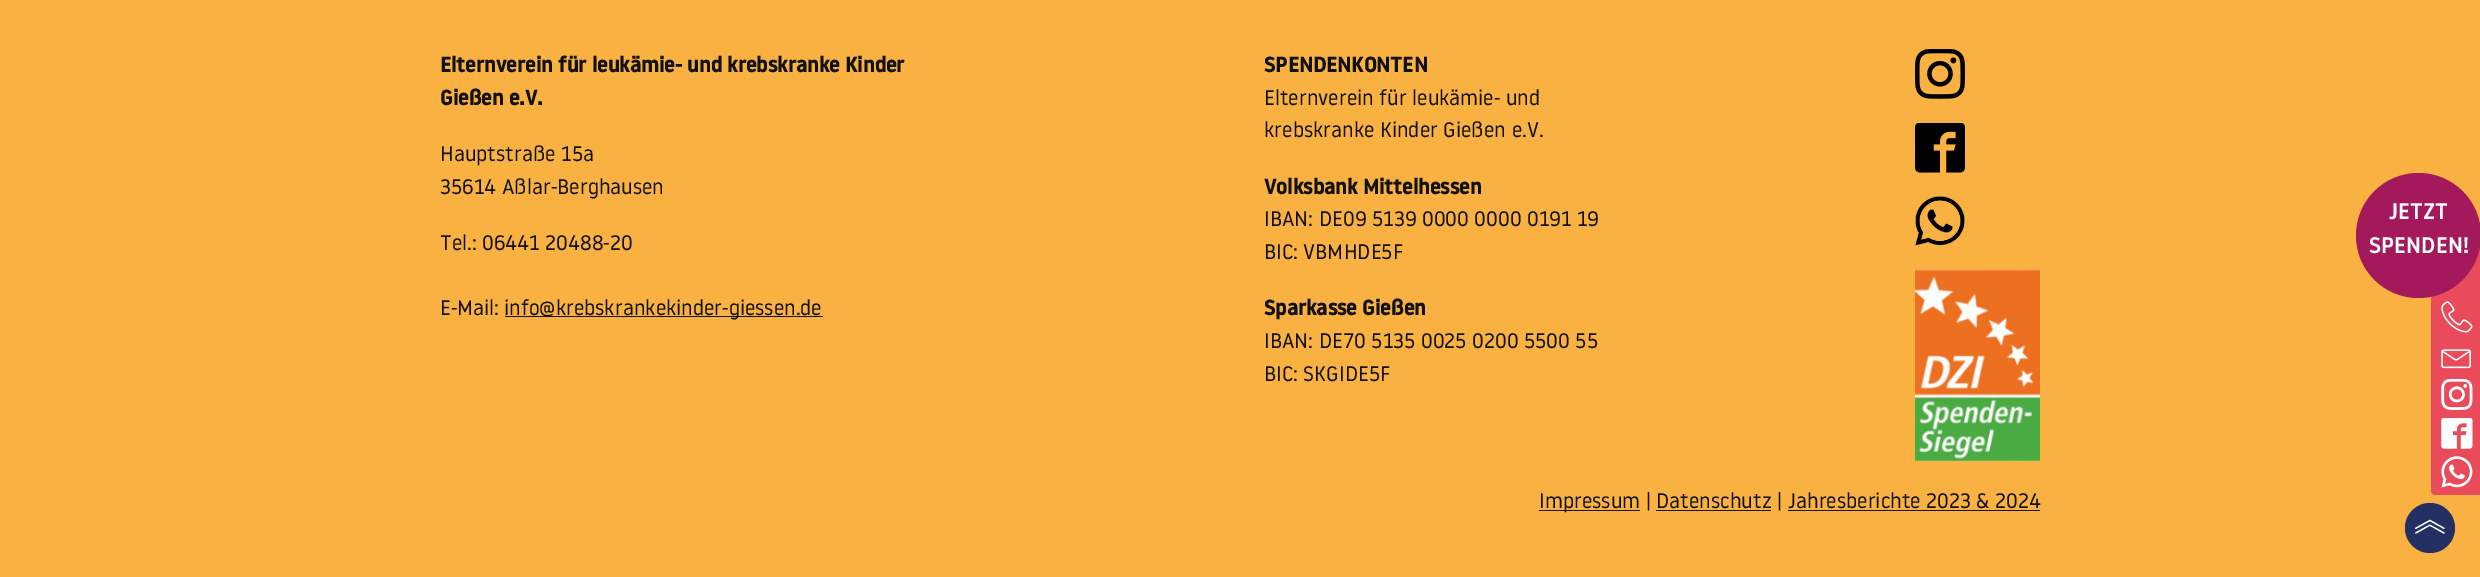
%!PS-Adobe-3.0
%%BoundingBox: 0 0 2480 577
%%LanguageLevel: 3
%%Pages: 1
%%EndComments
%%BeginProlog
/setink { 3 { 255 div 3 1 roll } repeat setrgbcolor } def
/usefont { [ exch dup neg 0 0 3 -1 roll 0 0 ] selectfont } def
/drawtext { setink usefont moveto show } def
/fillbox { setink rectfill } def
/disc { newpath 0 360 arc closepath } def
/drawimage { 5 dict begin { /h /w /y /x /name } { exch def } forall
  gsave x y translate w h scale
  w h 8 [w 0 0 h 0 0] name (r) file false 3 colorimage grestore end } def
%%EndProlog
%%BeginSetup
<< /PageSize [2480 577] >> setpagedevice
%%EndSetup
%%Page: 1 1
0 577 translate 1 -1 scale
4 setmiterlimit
0 0 2480 577 249 177 66 fillbox
(Elternverein für leukämie- und) 440 72 /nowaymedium-Bold 21 17 17 17 drawtext
(krebskranke Kinder) 727 72 /nowaymedium-Bold 21 17 17 17 drawtext
(Gießen e.V.) 440 105 /nowaymedium-Bold 21 17 17 17 drawtext
(Hauptstraße 15a) 440 161 /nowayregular-Regular 21 17 17 17 drawtext
(35614 Aßlar-Berghausen) 440 194 /nowayregular-Regular 21 17 17 17 drawtext
(Tel.: 06441 20488-20) 440 250 /nowayregular-Regular 21 17 17 17 drawtext
(E-Mail:) 440 315 /nowayregular-Regular 21 17 17 17 drawtext
505 316 318 1 17 17 17 fillbox
(info@krebskrankekinder-giessen.de) 504 315 /nowayregular-Regular 21 17 17 17 drawtext
(SPENDENKONTEN) 1264 72 /nowaymedium-Bold 21 17 17 17 drawtext
(Elternverein für leukämie- und) 1264 105 /nowayregular-Regular 21 17 17 17 drawtext
(krebskranke Kinder Gießen e.V.) 1264 137 /nowayregular-Regular 21 17 17 17 drawtext
(Volksbank Mittelhessen) 1264 194 /nowaymedium-Bold 21 17 17 17 drawtext
(IBAN: DE09 5139 0000 0000 0191 19) 1264 226 /nowayregular-Regular 21 17 17 17 drawtext
(BIC: VBMHDE5F) 1264 259 /nowayregular-Regular 21 17 17 17 drawtext
(Sparkasse Gießen) 1264 315 /nowaymedium-Bold 21 17 17 17 drawtext
(IBAN: DE70 5135 0025 0200 5500 55) 1264 348 /nowayregular-Regular 21 17 17 17 drawtext
(BIC: SKGIDE5F) 1264 381 /nowayregular-Regular 21 17 17 17 drawtext
(assets/img1.rgb) 1915 49 50 50 drawimage
(assets/img2.rgb) 1915 123 50 50 drawimage
(assets/img3.rgb) 1915 196 50 50 drawimage
(assets/img4.rgb) 1915 269 125 192 drawimage
1539 510 101 1 17 17 17 fillbox
(Impressum | Datenschutz | Jahresberichte 2023 & 2024) 1539 508 /nowayregular-Regular 21 17 17 17 drawtext
1656 510 115 1 17 17 17 fillbox
1788 510 252 1 17 17 17 fillbox
233 75 91 setink
2436 231 moveto 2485 231 lineto 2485 495 lineto 2436 495 lineto 2433 495 2431 493 2431 490 curveto 2431 236 lineto 2431 233 2433 231 2436 231 curveto closepath fill
163 25 91 setink
2418.5 235.5 62.5 disc fill
(JETZT) 2389 219 /nowaymedium-Medium 22.5 255 255 255 drawtext
(SPENDEN!) 2369 253 /nowaymedium-Medium 22.5 255 255 255 drawtext
(assets/img5.rgb) 2441 301 32 32 drawimage
(assets/img6.rgb) 2441 349 30 20 drawimage
(assets/img7.rgb) 2441 379 32 31 drawimage
(assets/img8.rgb) 2441 418 32 31 drawimage
(assets/img9.rgb) 2441 456 32 32 drawimage
36 48 100 setink
2430 528 25 disc fill
(assets/img10.rgb) 2415 519 30 15 drawimage
showpage
%%EOF
